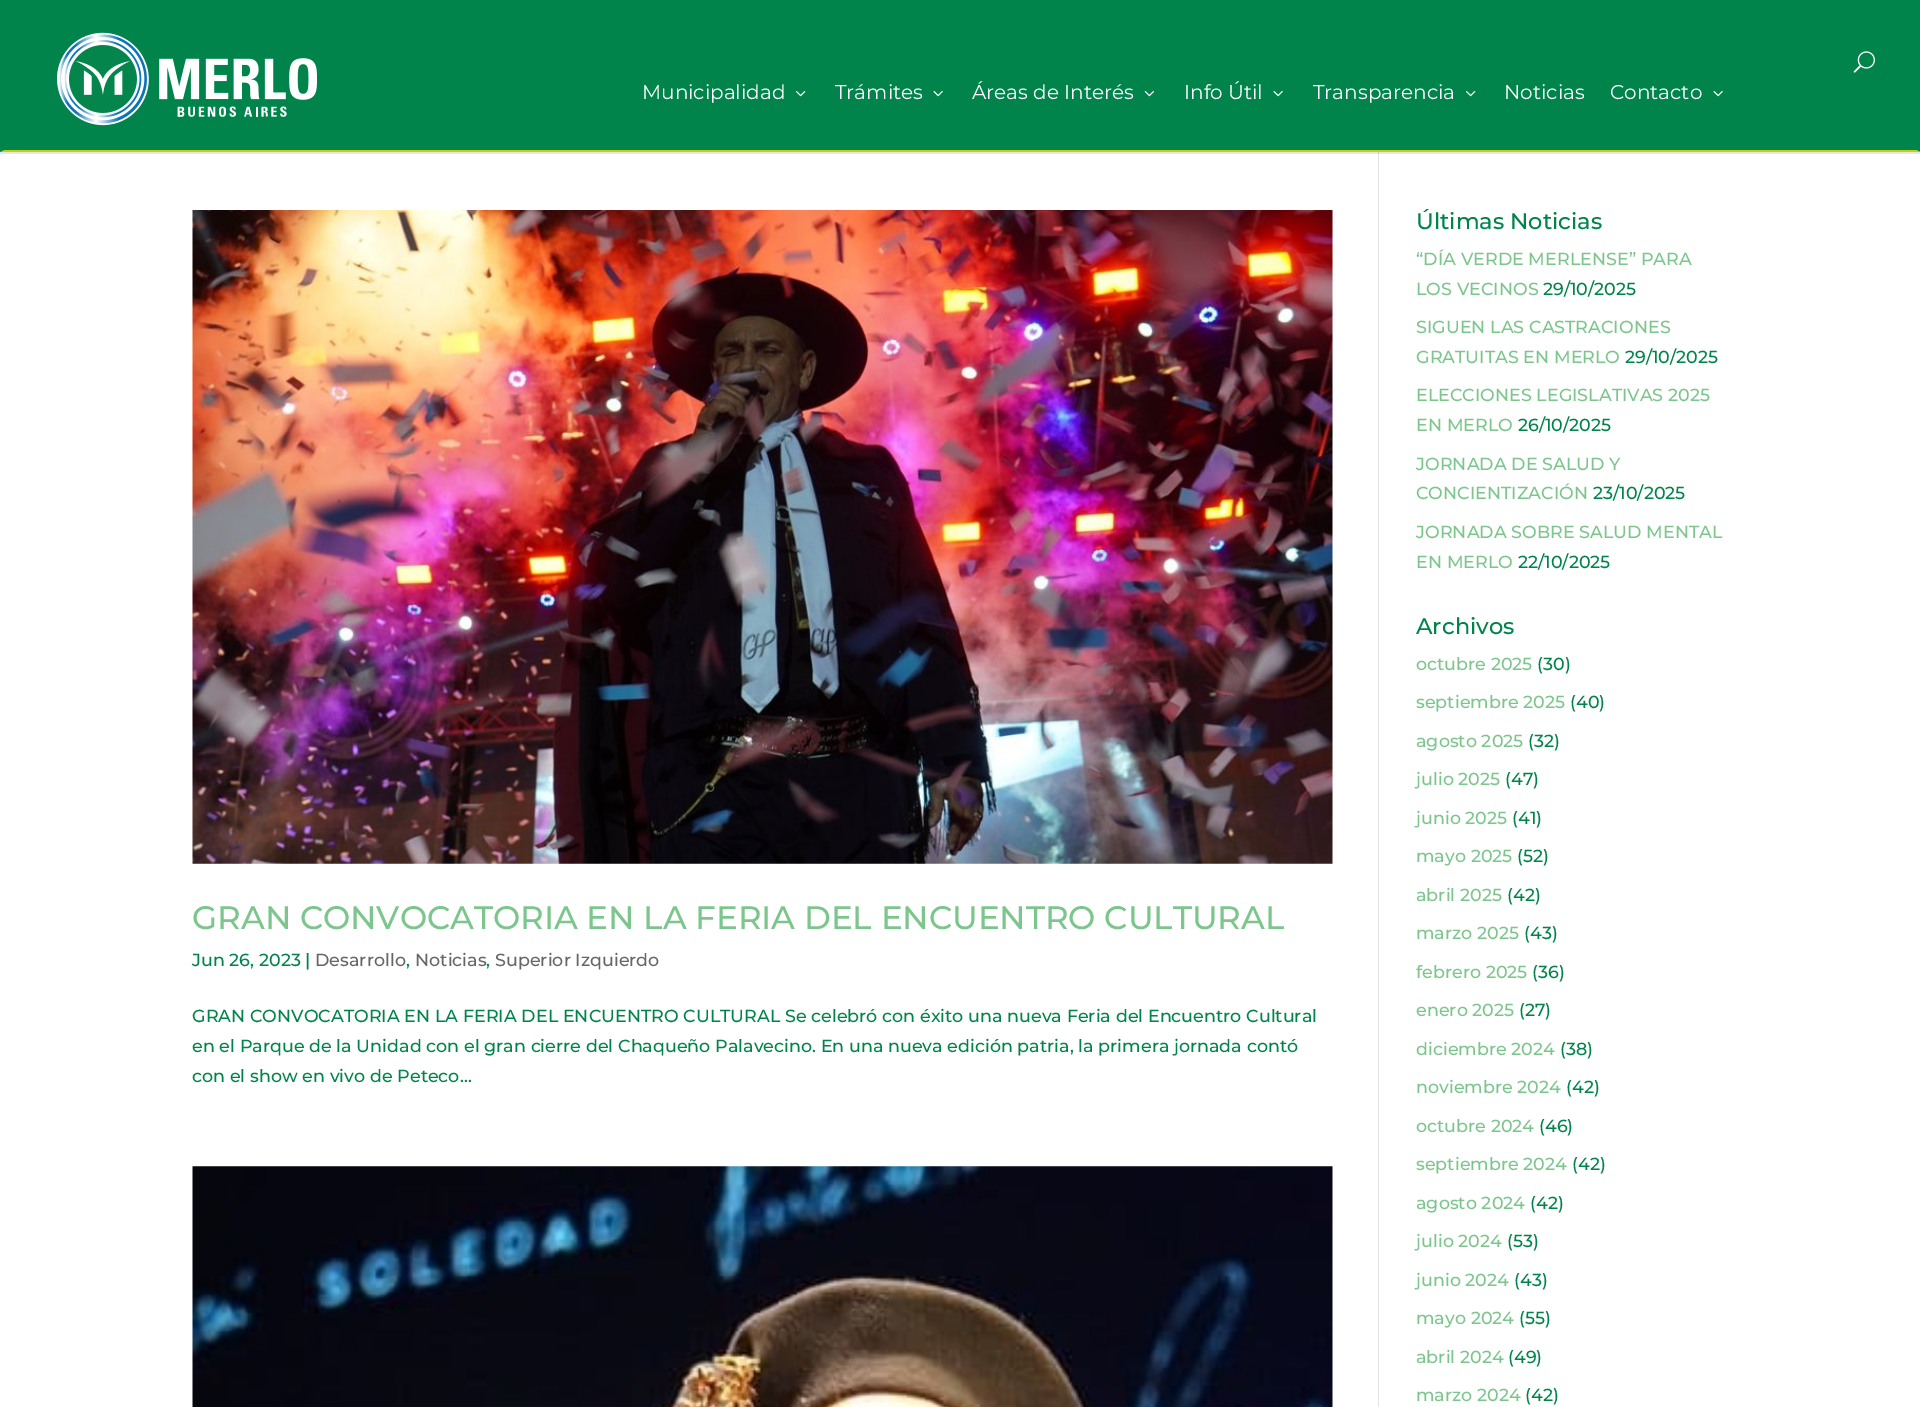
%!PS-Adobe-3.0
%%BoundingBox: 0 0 1920 1407
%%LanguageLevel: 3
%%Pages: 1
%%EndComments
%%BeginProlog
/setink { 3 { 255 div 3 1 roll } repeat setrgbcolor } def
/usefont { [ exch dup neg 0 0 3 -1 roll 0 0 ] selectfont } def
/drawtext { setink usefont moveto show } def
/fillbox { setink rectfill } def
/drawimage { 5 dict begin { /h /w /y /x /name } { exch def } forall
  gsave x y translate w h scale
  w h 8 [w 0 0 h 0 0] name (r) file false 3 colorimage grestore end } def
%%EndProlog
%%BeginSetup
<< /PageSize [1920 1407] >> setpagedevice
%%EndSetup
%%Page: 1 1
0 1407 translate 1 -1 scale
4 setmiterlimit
0 0 1920 1407 255 255 255 fillbox
4 4 1912 146 0 132 75 fillbox
0 0 1920 4 0 132 75 fillbox
1920 0 moveto 1920 152 lineto 1916 150 lineto 1916 4 lineto closepath fill
195 209 8 setink
1920 152 moveto 0 152 lineto 4 150 lineto 1916 150 lineto closepath fill
0 132 75 setink
0 152 moveto 0 0 lineto 4 4 lineto 4 150 lineto closepath fill
(assets/img1.rgb) 56 32 261 94 drawimage
(assets/img2.rgb) 1853 51 22 22 drawimage
(Municipalidad) 642 99 /Montserrat-Regular 20 255 255 255 drawtext
(assets/img3.rgb) 796 91 10 6 drawimage
(Trámites) 835 99 /Montserrat-Regular 20 255 255 255 drawtext
(assets/img4.rgb) 933 91 10 6 drawimage
(Áreas de Interés) 972 99 /Montserrat-Regular 20 255 255 255 drawtext
(assets/img5.rgb) 1144 91 10 6 drawimage
(Info Útil) 1184 99 /Montserrat-Regular 20 255 255 255 drawtext
(assets/img4.rgb) 1273 91 10 6 drawimage
(Transparencia) 1313 99 /Montserrat-Regular 20 255 255 255 drawtext
(assets/img3.rgb) 1466 91 10 6 drawimage
(Noticias) 1504 99 /Montserrat-Regular 20 255 255 255 drawtext
(Contacto) 1610 99 /Montserrat-Regular 20 255 255 255 drawtext
(assets/img4.rgb) 1713 91 10 6 drawimage
0 152 1920 2 230 230 230 fillbox
1378 154 1 1253 226 226 226 fillbox
1378 152 1 2 203 203 203 fillbox
(assets/img6.rgb) 192 210 1141 654 drawimage
(GRAN CONVOCATORIA EN LA FERIA DEL ENCUENTRO CULTURAL) 192 929 /Montserrat-Medium 32.5 124 198 141 drawtext
(Jun 26, 2023 |) 192 966 /Montserrat-Medium 17.5 0 132 75 drawtext
(Desarrollo) 315 966 /Montserrat-Medium 17.5 102 102 102 drawtext
(,) 406 966 /Montserrat-Medium 17.5 0 132 75 drawtext
(Noticias) 415 966 /Montserrat-Medium 17.5 102 102 102 drawtext
(,) 486 966 /Montserrat-Medium 17.5 0 132 75 drawtext
(Superior Izquierdo) 495 966 /Montserrat-Medium 17.5 102 102 102 drawtext
(GRAN CONVOCATORIA EN LA FERIA DEL ENCUENTRO CULTURAL Se celebró con éxito una nueva Feria del Encuentro Cultural) 192 1022 /Montserrat-Medium 17.5 0 132 75 drawtext
(en el Parque de la Unidad con el gran cierre del Chaqueño Palavecino. En una nueva edición patria, la primera jornada contó) 192 1052 /Montserrat-Medium 17.5 0 132 75 drawtext
(con el show en vivo de Peteco...) 192 1082 /Montserrat-Medium 17.5 0 132 75 drawtext
(assets/img7.rgb) 192 1166 1141 241 drawimage
(Últimas Noticias) 1416 229 /Montserrat-Medium 22.5 0 132 75 drawtext
(“DÍA VERDE MERLENSE” PARA) 1416 265 /Montserrat-Medium 17.5 124 198 141 drawtext
(LOS VECINOS) 1416 295 /Montserrat-Medium 17.5 124 198 141 drawtext
(29/10/2025) 1543 295 /Montserrat-Medium 17.5 0 132 75 drawtext
(SIGUEN LAS CASTRACIONES) 1416 333 /Montserrat-Medium 17.5 124 198 141 drawtext
(GRATUITAS EN MERLO) 1416 363 /Montserrat-Medium 17.5 124 198 141 drawtext
(29/10/2025) 1625 363 /Montserrat-Medium 17.5 0 132 75 drawtext
(ELECCIONES LEGISLATIVAS 2025) 1416 401 /Montserrat-Medium 17.5 124 198 141 drawtext
(EN MERLO) 1416 431 /Montserrat-Medium 17.5 124 198 141 drawtext
(26/10/2025) 1518 431 /Montserrat-Medium 17.5 0 132 75 drawtext
(JORNADA DE SALUD Y) 1416 470 /Montserrat-Medium 17.5 124 198 141 drawtext
(CONCIENTIZACIÓN) 1416 499 /Montserrat-Medium 17.5 124 198 141 drawtext
(23/10/2025) 1593 499 /Montserrat-Medium 17.5 0 132 75 drawtext
(JORNADA SOBRE SALUD MENTAL) 1416 538 /Montserrat-Medium 17.5 124 198 141 drawtext
(EN MERLO) 1416 568 /Montserrat-Medium 17.5 124 198 141 drawtext
(22/10/2025) 1518 568 /Montserrat-Medium 17.5 0 132 75 drawtext
(Archivos) 1416 634 /Montserrat-Medium 22.5 0 132 75 drawtext
(octubre 2025) 1416 670 /Montserrat-Medium 17.5 124 198 141 drawtext
(\(30\)) 1537 670 /Montserrat-Medium 17.5 0 132 75 drawtext
(septiembre 2025) 1416 708 /Montserrat-Medium 17.5 124 198 141 drawtext
(\(40\)) 1570 708 /Montserrat-Medium 17.5 0 132 75 drawtext
(agosto 2025) 1416 747 /Montserrat-Medium 17.5 124 198 141 drawtext
(\(32\)) 1528 747 /Montserrat-Medium 17.5 0 132 75 drawtext
(julio 2025) 1416 785 /Montserrat-Medium 17.5 124 198 141 drawtext
(\(47\)) 1505 785 /Montserrat-Medium 17.5 0 132 75 drawtext
(junio 2025) 1416 824 /Montserrat-Medium 17.5 124 198 141 drawtext
(\(41\)) 1512 824 /Montserrat-Medium 17.5 0 132 75 drawtext
(mayo 2025) 1416 862 /Montserrat-Medium 17.5 124 198 141 drawtext
(\(52\)) 1517 862 /Montserrat-Medium 17.5 0 132 75 drawtext
(abril 2025) 1416 901 /Montserrat-Medium 17.5 124 198 141 drawtext
(\(42\)) 1507 901 /Montserrat-Medium 17.5 0 132 75 drawtext
(marzo 2025) 1416 939 /Montserrat-Medium 17.5 124 198 141 drawtext
(\(43\)) 1524 939 /Montserrat-Medium 17.5 0 132 75 drawtext
(febrero 2025) 1416 978 /Montserrat-Medium 17.5 124 198 141 drawtext
(\(36\)) 1532 978 /Montserrat-Medium 17.5 0 132 75 drawtext
(enero 2025) 1416 1016 /Montserrat-Medium 17.5 124 198 141 drawtext
(\(27\)) 1519 1016 /Montserrat-Medium 17.5 0 132 75 drawtext
(diciembre 2024) 1416 1055 /Montserrat-Medium 17.5 124 198 141 drawtext
(\(38\)) 1560 1055 /Montserrat-Medium 17.5 0 132 75 drawtext
(noviembre 2024) 1416 1093 /Montserrat-Medium 17.5 124 198 141 drawtext
(\(42\)) 1566 1093 /Montserrat-Medium 17.5 0 132 75 drawtext
(octubre 2024) 1416 1132 /Montserrat-Medium 17.5 124 198 141 drawtext
(\(46\)) 1539 1132 /Montserrat-Medium 17.5 0 132 75 drawtext
(septiembre 2024) 1416 1170 /Montserrat-Medium 17.5 124 198 141 drawtext
(\(42\)) 1572 1170 /Montserrat-Medium 17.5 0 132 75 drawtext
(agosto 2024) 1416 1209 /Montserrat-Medium 17.5 124 198 141 drawtext
(\(42\)) 1530 1209 /Montserrat-Medium 17.5 0 132 75 drawtext
(julio 2024) 1416 1247 /Montserrat-Medium 17.5 124 198 141 drawtext
(\(53\)) 1507 1247 /Montserrat-Medium 17.5 0 132 75 drawtext
(junio 2024) 1416 1286 /Montserrat-Medium 17.5 124 198 141 drawtext
(\(43\)) 1514 1286 /Montserrat-Medium 17.5 0 132 75 drawtext
(mayo 2024) 1416 1324 /Montserrat-Medium 17.5 124 198 141 drawtext
(\(55\)) 1519 1324 /Montserrat-Medium 17.5 0 132 75 drawtext
(abril 2024) 1416 1363 /Montserrat-Medium 17.5 124 198 141 drawtext
(\(49\)) 1508 1363 /Montserrat-Medium 17.5 0 132 75 drawtext
(marzo 2024) 1416 1401 /Montserrat-Medium 17.5 124 198 141 drawtext
(\(42\)) 1525 1401 /Montserrat-Medium 17.5 0 132 75 drawtext
showpage
%%EOF
